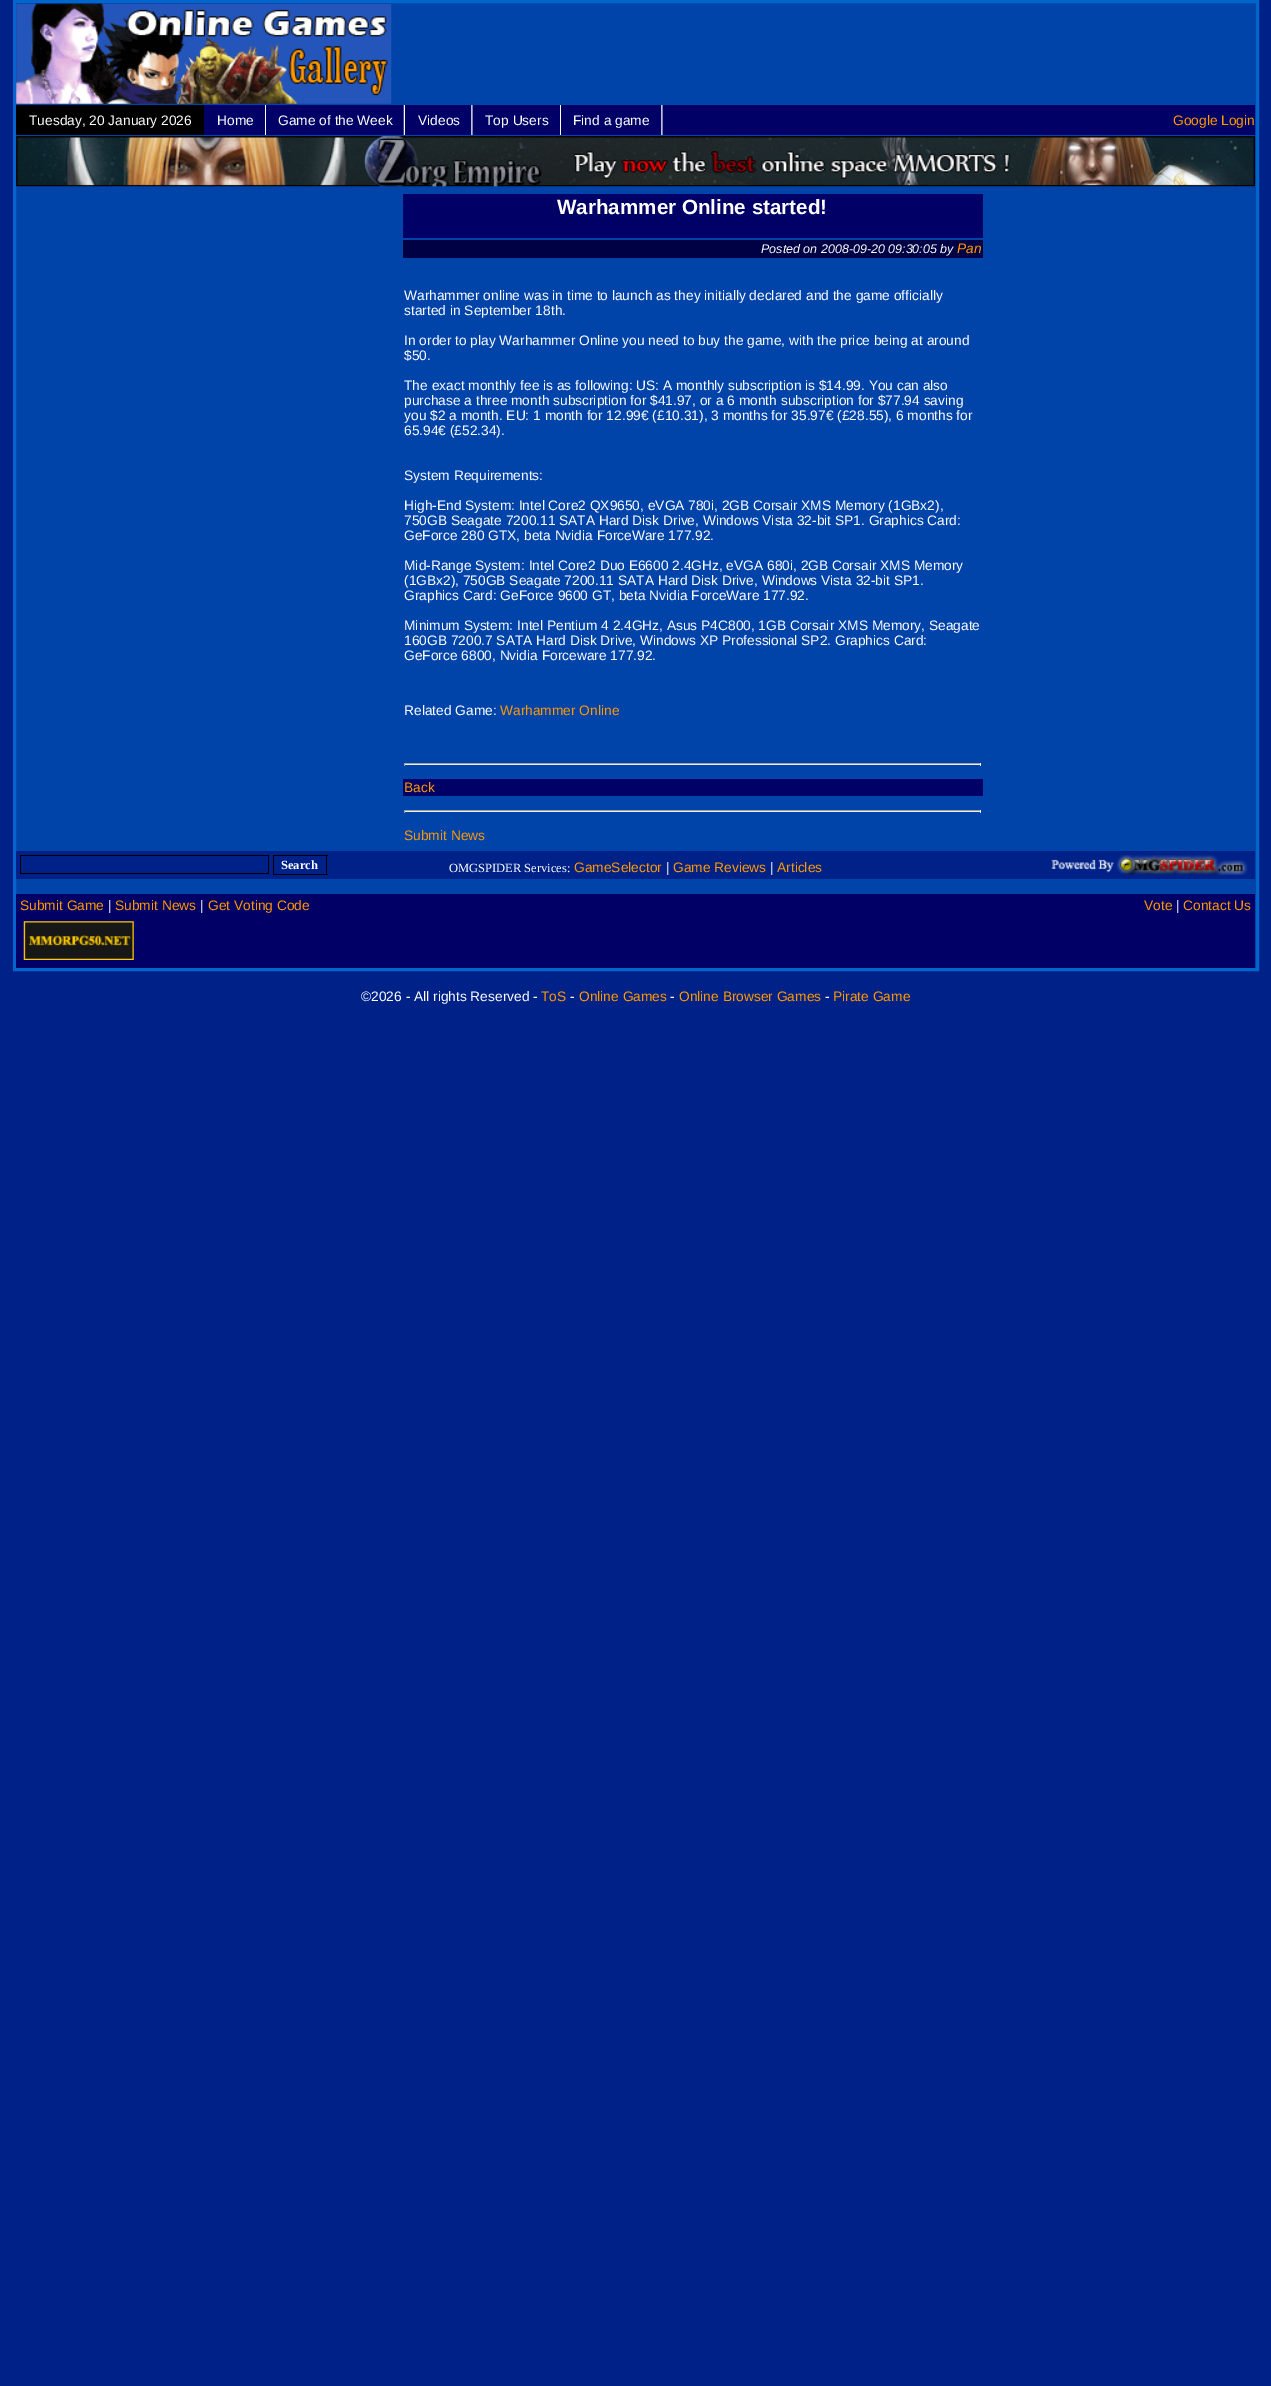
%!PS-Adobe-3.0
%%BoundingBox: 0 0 1271 2386
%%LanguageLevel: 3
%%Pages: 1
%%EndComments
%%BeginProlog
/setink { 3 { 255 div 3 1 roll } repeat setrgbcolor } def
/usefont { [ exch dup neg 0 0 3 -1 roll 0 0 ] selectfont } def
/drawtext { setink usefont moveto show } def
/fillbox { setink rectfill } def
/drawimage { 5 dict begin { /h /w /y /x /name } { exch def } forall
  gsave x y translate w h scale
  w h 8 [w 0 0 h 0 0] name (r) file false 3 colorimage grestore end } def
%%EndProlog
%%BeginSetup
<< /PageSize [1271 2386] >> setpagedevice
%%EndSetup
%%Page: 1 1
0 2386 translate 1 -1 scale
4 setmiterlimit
0 0 1271 2386 0 34 136 fillbox
0 68 170 setink
14.5 1.5 moveto 1257.5 1.5 lineto 1257.5 969.5 lineto 14.5 969.5 lineto closepath gsave fill grestore
0 102 204 setink
3 setlinewidth
stroke
(assets/img1.rgb) 16 3 376 101 drawimage
204 105 1051 30 0 0 102 fillbox
16 105 188 30 0 0 0 fillbox
(Tuesday, 20 January 2026) 29 125 /LiberationSans-Regular 13.75 255 255 255 drawtext
(assets/img2.rgb) 265 105 1 30 drawimage
(Home) 217 125 /LiberationSans-Regular 13.75 255 255 255 drawtext
(assets/img3.rgb) 403 105 2 30 drawimage
(Game of the Week) 278 125 /LiberationSans-Regular 13.75 255 255 255 drawtext
(assets/img4.rgb) 471 105 2 30 drawimage
(Videos) 418 125 /LiberationSans-Regular 13.75 255 255 255 drawtext
(assets/img2.rgb) 560 105 1 30 drawimage
(Top Users) 485 125 /LiberationSans-Regular 13.75 255 255 255 drawtext
(assets/img4.rgb) 661 105 2 30 drawimage
(Find a game) 573 125 /LiberationSans-Regular 13.75 255 255 255 drawtext
(Google Login) 1173 125 /LiberationSans-Regular 13.75 255 153 0 drawtext
16 136 1239 50 32 32 32 fillbox
(assets/img5.rgb) 16 136 1239 51 drawimage
403 194 580 44 0 0 102 fillbox
(Warhammer Online started!) 557 214 /LiberationSans-Bold 20.6 255 255 255 drawtext
403 240 580 18 0 0 68 fillbox
(Posted on 2008-09-20 09:30:05 by) 761 253 /LiberationSans-Italic 12.5 255 255 255 drawtext
(Pan) 957 253 /LiberationSans-Italic 13.75 255 153 0 drawtext
(Warhammer online was in time to launch as they initially declared and the game officially) 404 300 /LiberationSans-Regular 13.75 255 255 255 drawtext
(started in September 18th.) 404 315 /LiberationSans-Regular 13.75 255 255 255 drawtext
(In order to play Warhammer Online you need to buy the game, with the price being at around) 404 345 /LiberationSans-Regular 13.75 255 255 255 drawtext
($50.) 404 360 /LiberationSans-Regular 13.75 255 255 255 drawtext
(The exact monthly fee is as following: US: A monthly subscription is $14.99. You can also) 404 390 /LiberationSans-Regular 13.75 255 255 255 drawtext
(purchase a three month subscription for $41.97, or a 6 month subscription for $77.94 saving) 404 405 /LiberationSans-Regular 13.75 255 255 255 drawtext
(you $2 a month. EU: 1 month for 12.99€ \(£10.31\), 3 months for 35.97€ \(£28.55\), 6 months for) 404 420 /LiberationSans-Regular 13.75 255 255 255 drawtext
(65.94€ \(£52.34\).) 404 435 /LiberationSans-Regular 13.75 255 255 255 drawtext
(System Requirements:) 404 480 /LiberationSans-Regular 13.75 255 255 255 drawtext
(High-End System: Intel Core2 QX9650, eVGA 780i, 2GB Corsair XMS Memory \(1GBx2\),) 404 510 /LiberationSans-Regular 13.75 255 255 255 drawtext
(750GB Seagate 7200.11 SATA Hard Disk Drive, Windows Vista 32-bit SP1. Graphics Card:) 404 525 /LiberationSans-Regular 13.75 255 255 255 drawtext
(GeForce 280 GTX, beta Nvidia ForceWare 177.92.) 404 540 /LiberationSans-Regular 13.75 255 255 255 drawtext
(Mid-Range System: Intel Core2 Duo E6600 2.4GHz, eVGA 680i, 2GB Corsair XMS Memory) 404 570 /LiberationSans-Regular 13.75 255 255 255 drawtext
(\(1GBx2\), 750GB Seagate 7200.11 SATA Hard Disk Drive, Windows Vista 32-bit SP1.) 404 585 /LiberationSans-Regular 13.75 255 255 255 drawtext
(Graphics Card: GeForce 9600 GT, beta Nvidia ForceWare 177.92.) 404 600 /LiberationSans-Regular 13.75 255 255 255 drawtext
(Minimum System: Intel Pentium 4 2.4GHz, Asus P4C800, 1GB Corsair XMS Memory, Seagate) 404 630 /LiberationSans-Regular 13.75 255 255 255 drawtext
(160GB 7200.7 SATA Hard Disk Drive, Windows XP Professional SP2. Graphics Card:) 404 645 /LiberationSans-Regular 13.75 255 255 255 drawtext
(GeForce 6800, Nvidia Forceware 177.92.) 404 660 /LiberationSans-Regular 13.75 255 255 255 drawtext
(Related Game:) 404 715 /LiberationSans-Regular 13.75 255 255 255 drawtext
(Warhammer Online) 500 715 /LiberationSans-Regular 13.75 255 153 0 drawtext
404 763 577 1 159 159 159 fillbox
980 763 1 3 238 238 238 fillbox
404 764 577 1 238 238 238 fillbox
404 763 1 3 159 159 159 fillbox
403 779 580 17 0 0 102 fillbox
(Back) 404 792 /LiberationSans-Regular 13.75 255 153 0 drawtext
404 810 577 1 159 159 159 fillbox
980 810 1 3 238 238 238 fillbox
404 811 577 1 238 238 238 fillbox
404 810 1 3 159 159 159 fillbox
(Submit News) 404 840 /LiberationSans-Regular 13.75 255 153 0 drawtext
16 851 1239 28 0 34 136 fillbox
20 855 249 1 0 0 0 fillbox
268 855 1 19 0 0 0 fillbox
20 873 249 1 0 0 0 fillbox
20 855 1 19 0 0 0 fillbox
273 855 55 1 0 0 0 fillbox
326 855 1 20 0 0 0 fillbox
273 874 55 1 0 0 0 fillbox
273 855 1 20 0 0 0 fillbox
(Search) 281 869 /LiberationSerif-Bold 12.5 255 255 255 drawtext
(OMGSPIDER Services:) 449 872 /LiberationSerif-Regular 12.5 255 255 255 drawtext
(GameSelector) 574 872 /LiberationSans-Regular 13.75 255 153 0 drawtext
(|) 666 872 /LiberationSans-Regular 13.75 255 255 255 drawtext
(Game Reviews) 673 872 /LiberationSans-Regular 13.75 255 153 0 drawtext
(|) 770 872 /LiberationSans-Regular 13.75 255 255 255 drawtext
(Articles) 777 872 /LiberationSans-Regular 13.75 255 153 0 drawtext
(assets/img6.rgb) 1051 855 197 20 drawimage
16 894 1239 74 0 0 102 fillbox
(Submit Game) 20 910 /LiberationSans-Regular 13.75 255 153 0 drawtext
(|) 108 910 /LiberationSans-Regular 13.75 255 255 255 drawtext
(Submit News) 115 910 /LiberationSans-Regular 13.75 255 153 0 drawtext
(|) 200 910 /LiberationSans-Regular 13.75 255 255 255 drawtext
(Get Voting Code) 208 910 /LiberationSans-Regular 13.75 255 153 0 drawtext
(Vote) 1144 910 /LiberationSans-Regular 13.75 255 153 0 drawtext
(|) 1176 910 /LiberationSans-Regular 13.75 255 255 255 drawtext
(Contact Us) 1183 910 /LiberationSans-Regular 13.75 255 153 0 drawtext
(assets/img7.rgb) 23 921 111 39 drawimage
(©2026 - All rights Reserved -) 361 1001 /LiberationSans-Regular 13.75 255 255 255 drawtext
(ToS) 541 1001 /LiberationSans-Regular 13.75 255 153 0 drawtext
(-) 570 1001 /LiberationSans-Regular 13.75 255 255 255 drawtext
(Online Games) 579 1001 /LiberationSans-Regular 13.75 255 153 0 drawtext
(-) 670 1001 /LiberationSans-Regular 13.75 255 255 255 drawtext
(Online Browser Games) 679 1001 /LiberationSans-Regular 13.75 255 153 0 drawtext
(-) 825 1001 /LiberationSans-Regular 13.75 255 255 255 drawtext
(Pirate Game) 833 1001 /LiberationSans-Regular 13.75 255 153 0 drawtext
showpage
%%EOF
